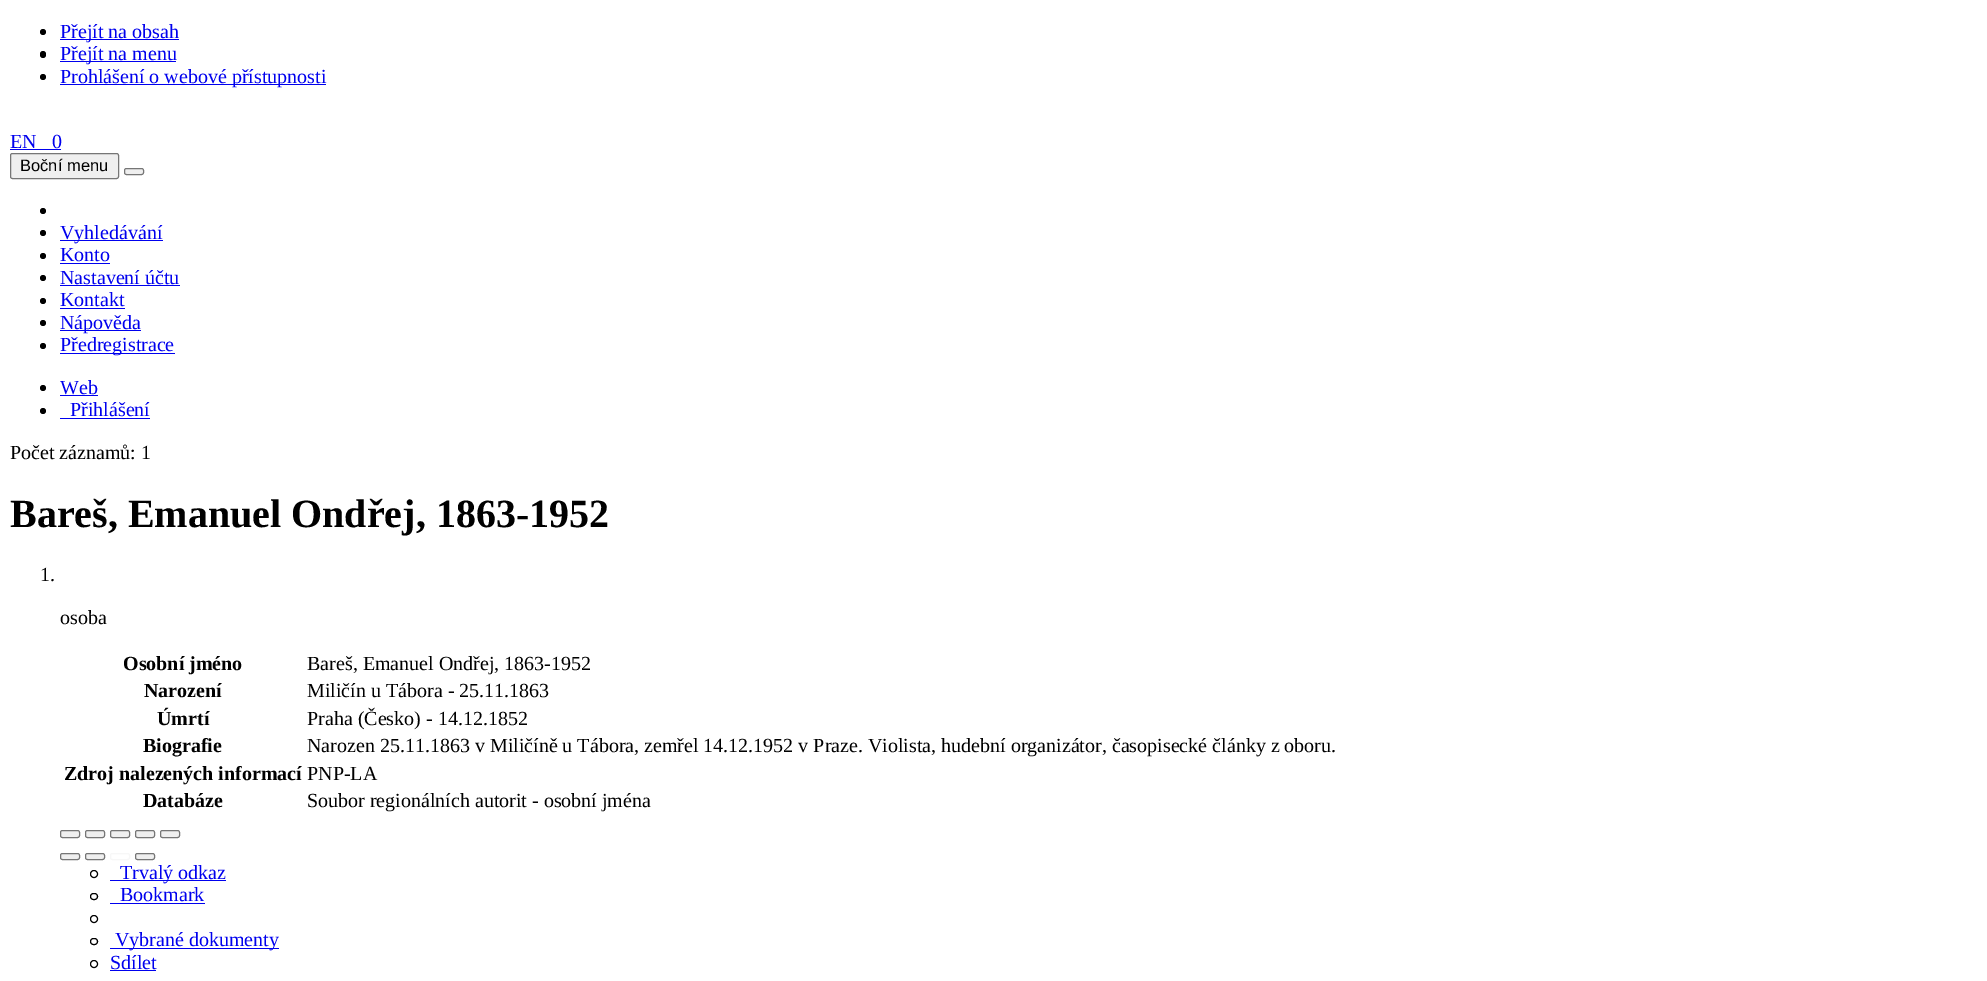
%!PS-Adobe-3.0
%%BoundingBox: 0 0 1987 981
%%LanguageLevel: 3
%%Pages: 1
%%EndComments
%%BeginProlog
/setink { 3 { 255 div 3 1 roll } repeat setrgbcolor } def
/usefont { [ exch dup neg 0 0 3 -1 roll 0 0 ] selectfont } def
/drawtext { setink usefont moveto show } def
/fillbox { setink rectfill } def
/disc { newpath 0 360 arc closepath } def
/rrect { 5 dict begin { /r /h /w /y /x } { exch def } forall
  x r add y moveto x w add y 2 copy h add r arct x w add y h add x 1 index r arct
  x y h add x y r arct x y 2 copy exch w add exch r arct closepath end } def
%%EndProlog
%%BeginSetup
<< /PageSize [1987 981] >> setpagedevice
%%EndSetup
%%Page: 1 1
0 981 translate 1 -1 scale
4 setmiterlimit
0 0 1987 981 255 255 255 fillbox
0 0 0 setink
43 32 3 disc fill
60 39 119 1 0 0 238 fillbox
(Přejít na obsah) 60 38 /LiberationSerif-Regular 20 0 0 238 drawtext
0 0 0 setink
40 51 6 7 3 rrect fill
60 61 116 1 0 0 238 fillbox
(Přejít na menu) 60 60 /LiberationSerif-Regular 20 0 0 238 drawtext
0 0 0 setink
43 77 3 disc fill
60 84 266 1 0 0 238 fillbox
(Prohlášení o webové přístupnosti) 60 83 /LiberationSerif-Regular 20 0 0 238 drawtext
(EN) 10 148 /LiberationSerif-Regular 20 0 0 238 drawtext
10 149 51 1 0 0 238 fillbox
(0) 52 148 /LiberationSerif-Regular 20 0 0 238 drawtext
239 239 239 setink
10.5 153.5 108 25 2 rrect gsave fill grestore
118 118 118 setink
stroke
(Boční menu) 20 171 /LiberationSans-Regular 16.5 0 0 0 drawtext
239 239 239 setink
124.5 168.5 19 6 2 rrect gsave fill grestore
118 118 118 setink
stroke
0 0 0 setink
43 211 3 disc fill
43 233 3 disc fill
60 240 103 1 0 0 238 fillbox
(Vyhledávání) 60 239 /LiberationSerif-Regular 20 0 0 238 drawtext
0 0 0 setink
43 256 3 disc fill
(Konto) 60 261 /LiberationSerif-Regular 20 0 0 238 drawtext
60 263 50 1 0 0 238 fillbox
0 0 0 setink
43 278 3 disc fill
(Nastavení účtu) 60 284 /LiberationSerif-Regular 20 0 0 238 drawtext
60 285 120 1 0 0 238 fillbox
0 0 0 setink
43 301 3 disc fill
(Kontakt) 60 306 /LiberationSerif-Regular 20 0 0 238 drawtext
60 308 65 1 0 0 238 fillbox
0 0 0 setink
43 323 3 disc fill
60 330 81 1 0 0 238 fillbox
(Nápověda) 60 329 /LiberationSerif-Regular 20 0 0 238 drawtext
0 0 0 setink
43 346 3 disc fill
60 353 115 1 0 0 238 fillbox
(Předregistrace) 60 351 /LiberationSerif-Regular 20 0 0 238 drawtext
0 0 0 setink
43 388 3 disc fill
(Web) 60 394 /LiberationSerif-Regular 20 0 0 238 drawtext
60 395 38 1 0 0 238 fillbox
0 0 0 setink
43 411 3 disc fill
(Přihlášení) 70 416 /LiberationSerif-Regular 20 0 0 238 drawtext
60 418 90 1 0 0 238 fillbox
(Počet záznamů: 1) 10 459 /LiberationSerif-Regular 20 0 0 0 drawtext
(Bareš, Emanuel Ondřej, 1863-1952) 10 527 /LiberationSerif-Bold 40 0 0 0 drawtext
(1.) 40 581 /LiberationSerif-Regular 20 0 0 0 drawtext
(osoba) 60 624 /LiberationSerif-Regular 20 0 0 0 drawtext
(Osobní jméno) 123 670 /LiberationSerif-Bold 20 0 0 0 drawtext
(Bareš, Emanuel Ondřej, 1863-1952) 307 670 /LiberationSerif-Regular 20 0 0 0 drawtext
(Narození) 144 697 /LiberationSerif-Bold 20 0 0 0 drawtext
(Miličín u Tábora - 25.11.1863) 307 697 /LiberationSerif-Regular 20 0 0 0 drawtext
(Úmrtí) 157 725 /LiberationSerif-Bold 20 0 0 0 drawtext
(Praha \(Česko\) - 14.12.1852) 307 725 /LiberationSerif-Regular 20 0 0 0 drawtext
(Biografie) 143 752 /LiberationSerif-Bold 20 0 0 0 drawtext
(Narozen 25.11.1863 v Miličíně u Tábora, zemřel 14.12.1952 v Praze. Violista, hudební organizátor, časopisecké články z oboru.) 307 752 /LiberationSerif-Regular 20 0 0 0 drawtext
(Zdroj nalezených informací) 64 780 /LiberationSerif-Bold 20 0 0 0 drawtext
(PNP-LA) 307 780 /LiberationSerif-Regular 20 0 0 0 drawtext
(Databáze) 143 807 /LiberationSerif-Bold 20 0 0 0 drawtext
(Soubor regionálních autorit - osobní jména) 307 807 /LiberationSerif-Regular 20 0 0 0 drawtext
239 239 239 setink
60.5 830.5 19 7 2 rrect gsave fill grestore
118 118 118 setink
stroke
239 239 239 setink
85.5 830.5 19 7 2 rrect gsave fill grestore
118 118 118 setink
stroke
239 239 239 setink
110.5 830.5 19 7 2 rrect gsave fill grestore
118 118 118 setink
stroke
239 239 239 setink
135.5 830.5 19 7 2 rrect gsave fill grestore
118 118 118 setink
stroke
239 239 239 setink
160.5 830.5 19 7 2 rrect gsave fill grestore
118 118 118 setink
stroke
239 239 239 setink
60.5 853.5 19 6 2 rrect gsave fill grestore
118 118 118 setink
stroke
239 239 239 setink
85.5 853.5 19 6 2 rrect gsave fill grestore
118 118 118 setink
stroke
247 247 247 setink
110.5 853.5 19 6 2 rrect stroke
239 239 239 setink
135.5 853.5 19 6 2 rrect gsave fill grestore
118 118 118 setink
stroke
0 0 0 setink
94 874 3.5 disc stroke
110 880 116 1 0 0 238 fillbox
(Trvalý odkaz) 120 879 /LiberationSerif-Regular 20 0 0 238 drawtext
0 0 0 setink
90.5 893.5 7 6 3 rrect stroke
(Bookmark) 120 901 /LiberationSerif-Regular 20 0 0 238 drawtext
110 903 95 1 0 0 238 fillbox
0 0 0 setink
94 919 3.5 disc stroke
90.5 938.5 7 6 3 rrect stroke
110 948 169 1 0 0 238 fillbox
(Vybrané dokumenty) 115 946 /LiberationSerif-Regular 20 0 0 238 drawtext
0 0 0 setink
94 964 3.5 disc stroke
(Sdílet) 110 969 /LiberationSerif-Regular 20 0 0 238 drawtext
110 970 46 1 0 0 238 fillbox
showpage
%%EOF
